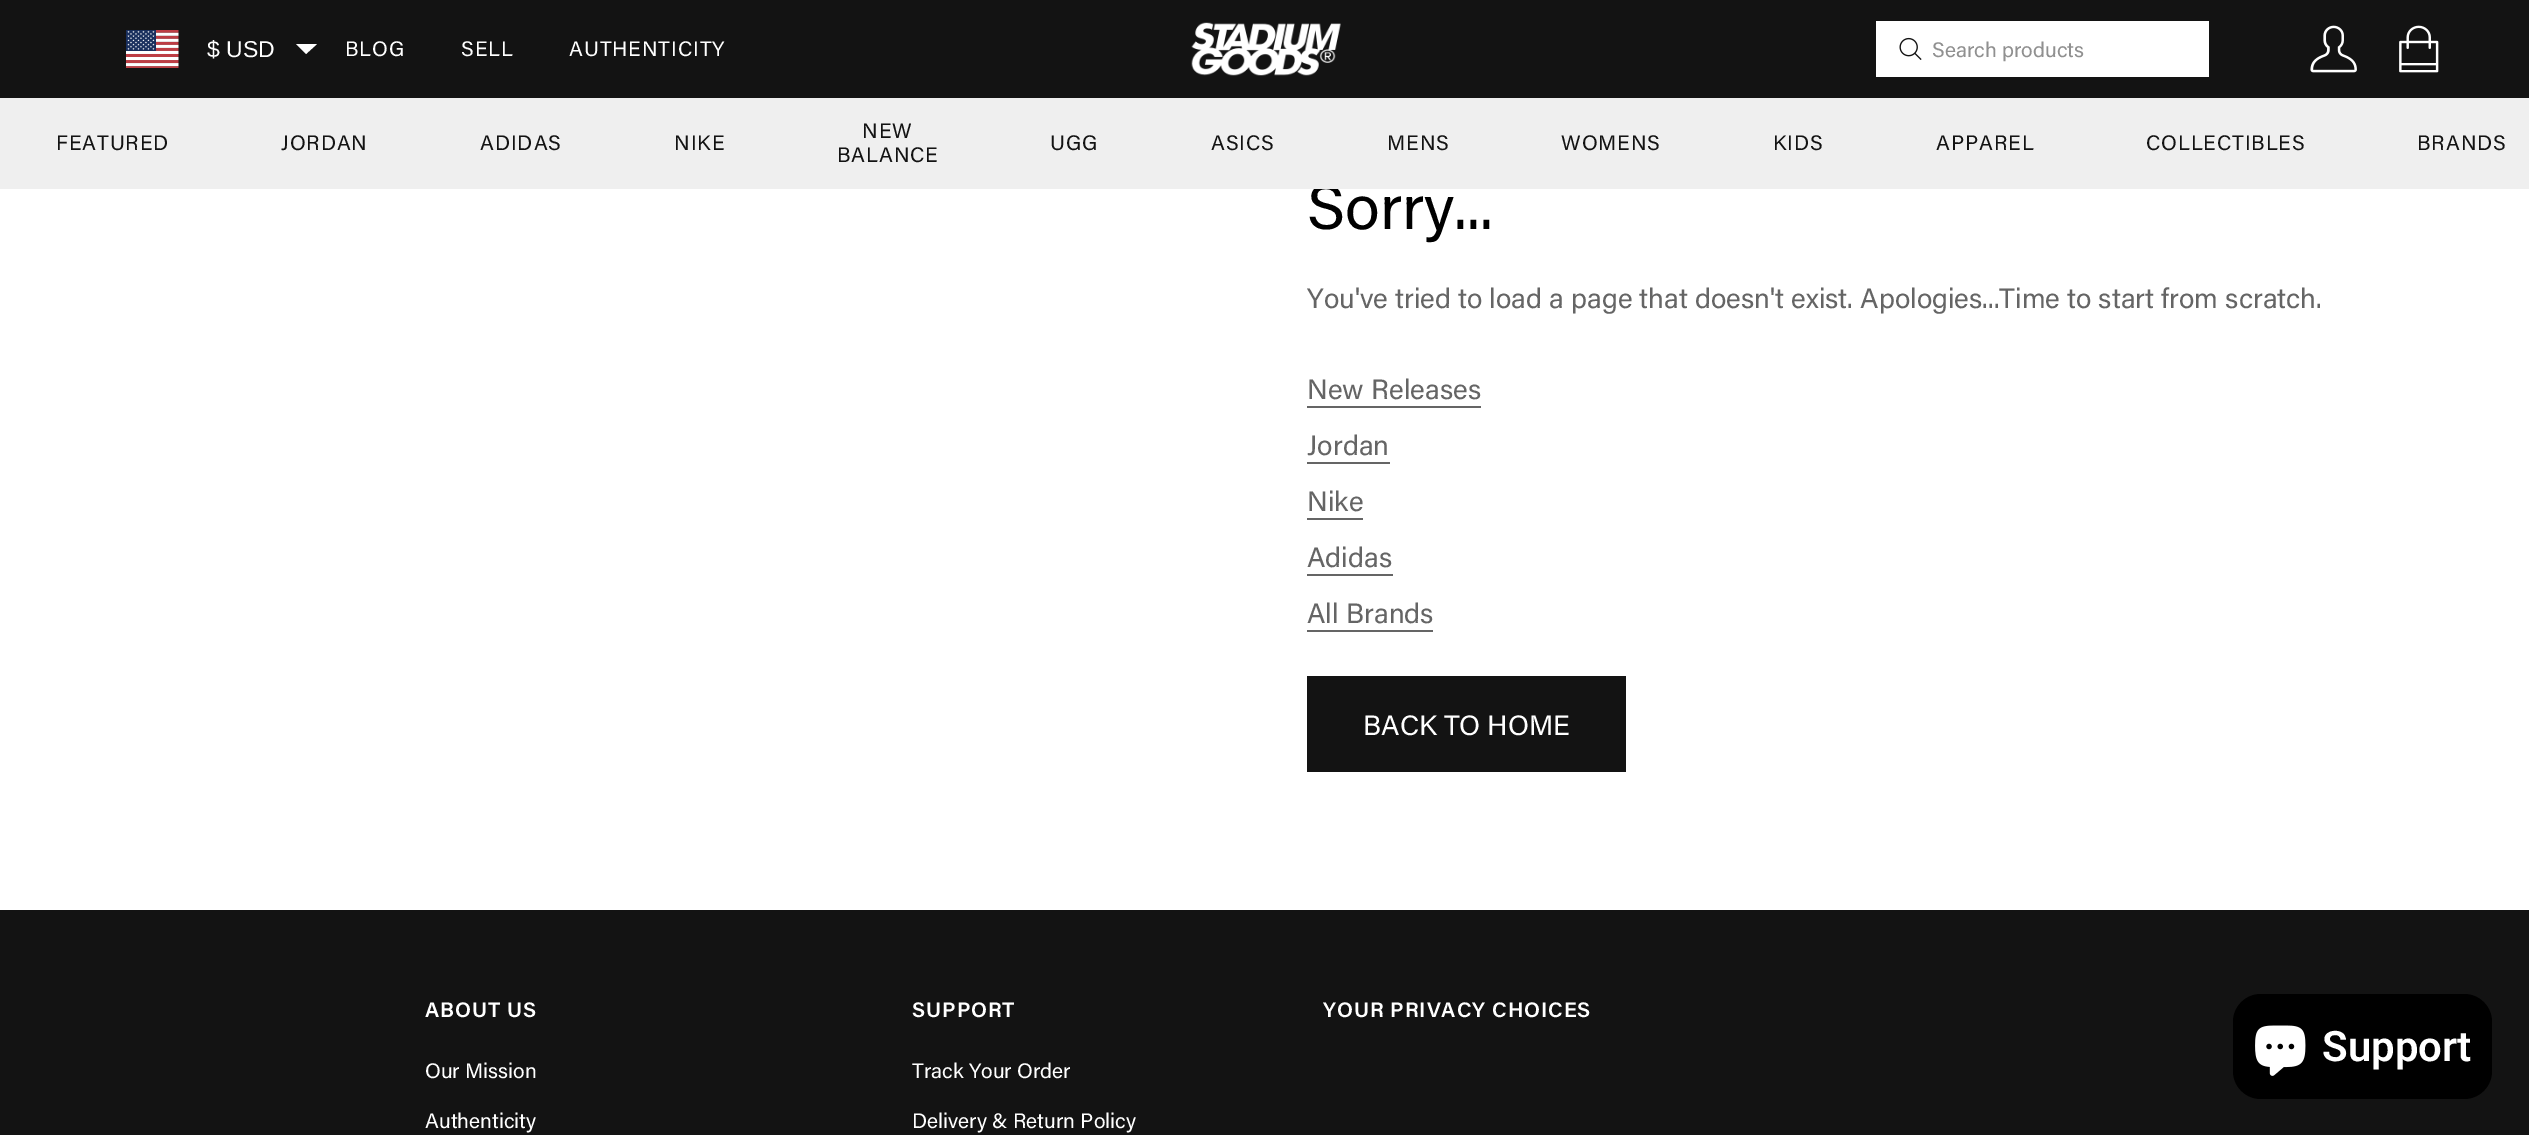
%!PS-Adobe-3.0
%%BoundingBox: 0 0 2529 1135
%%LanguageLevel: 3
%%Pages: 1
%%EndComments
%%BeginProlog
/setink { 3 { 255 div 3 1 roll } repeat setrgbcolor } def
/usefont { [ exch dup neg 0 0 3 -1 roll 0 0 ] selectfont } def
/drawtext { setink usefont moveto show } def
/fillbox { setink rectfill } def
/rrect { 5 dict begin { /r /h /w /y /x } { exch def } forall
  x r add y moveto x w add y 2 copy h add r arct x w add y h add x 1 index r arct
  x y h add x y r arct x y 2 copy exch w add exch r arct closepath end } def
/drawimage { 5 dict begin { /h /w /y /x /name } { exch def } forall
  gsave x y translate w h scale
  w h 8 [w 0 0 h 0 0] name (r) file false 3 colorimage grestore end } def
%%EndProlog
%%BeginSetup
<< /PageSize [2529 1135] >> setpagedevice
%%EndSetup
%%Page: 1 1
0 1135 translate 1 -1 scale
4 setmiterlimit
0 0 2529 1135 255 255 255 fillbox
0 0 2529 98 19 19 19 fillbox
(assets/img1.rgb) 126 30 53 38 drawimage
($ USD) 207 57 /LiberationSans-Regular 23 255 255 255 drawtext
296 44 moveto 317 44 lineto 306 54 lineto closepath fill
/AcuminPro-Regular 21 usefont
345 56 moveto 0.9 0 (BLOG) ashow
461 56 moveto 0.9 0 (SELL) ashow
569 56 moveto 0.9 0 (AUTHENTICITY) ashow
(assets/img2.rgb) 1191 22 150 54 drawimage
1876 21 333 56 255 255 255 fillbox
(assets/img3.rgb) 1899 37 23 23 drawimage
(Search products) 1932 57 /AcuminPro-Regular 21 144 144 144 drawtext
(assets/img4.rgb) 2310 25 47 48 drawimage
(assets/img5.rgb) 2399 25 40 48 drawimage
(Sorry...) 1307 229 /AcuminPro-Regular 63 0 0 0 drawtext
0 98 2529 91 239 239 239 fillbox
/AcuminPro-Regular 21 usefont
19 19 19 setink
56 150 moveto 0.9 0 (FEATURED) ashow
281 150 moveto 0.9 0 (JORDAN) ashow
480 150 moveto 0.9 0 (ADIDAS) ashow
674 150 moveto 0.9 0 (NIKE) ashow
862 138 moveto 0.9 0 (NEW) ashow
837 162 moveto 0.9 0 (BALANCE) ashow
1050 150 moveto 0.9 0 (UGG) ashow
1211 150 moveto 0.9 0 (ASICS) ashow
1387 150 moveto 0.9 0 (MENS) ashow
1561 150 moveto 0.9 0 (WOMENS) ashow
1773 150 moveto 0.9 0 (KIDS) ashow
1936 150 moveto 0.9 0 (APPAREL) ashow
2146 150 moveto 0.9 0 (COLLECTIBLES) ashow
2417 150 moveto 0.9 0 (BRANDS) ashow
(You've tried to load a page that doesn't exist. Apologies...Time to start from scratch.) 1307 308 /AcuminPro-Regular 28 101 101 101 drawtext
(New Releases) 1307 399 /AcuminPro-Regular 28 101 101 101 drawtext
1307 406 174 2 101 101 101 fillbox
(Jordan) 1307 455 /AcuminPro-Regular 28 101 101 101 drawtext
1307 462 83 2 101 101 101 fillbox
(Nike) 1307 511 /AcuminPro-Regular 28 101 101 101 drawtext
1307 518 56 2 101 101 101 fillbox
(Adidas) 1307 567 /AcuminPro-Regular 28 101 101 101 drawtext
1307 574 86 2 101 101 101 fillbox
(All Brands) 1307 623 /AcuminPro-Regular 28 101 101 101 drawtext
1307 630 126 2 101 101 101 fillbox
1307 676 319 96 19 19 19 fillbox
(BACK TO HOME) 1363 735 /AcuminPro-Regular 28 255 255 255 drawtext
0 910 2529 225 19 19 19 fillbox
/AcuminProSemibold-SemiBold 21 usefont
255 255 255 setink
425 1017 moveto 0.9 0 (ABOUT US) ashow
(Our Mission) 425 1078 /AcuminPro-Regular 21 255 255 255 drawtext
(Authenticity) 425 1128 /AcuminPro-Regular 21 255 255 255 drawtext
/AcuminProSemibold-SemiBold 21 usefont
912 1017 moveto 0.9 0 (SUPPORT) ashow
(Track Your Order) 912 1078 /AcuminPro-Regular 21 255 255 255 drawtext
(Delivery & Return Policy) 912 1128 /AcuminPro-Regular 21 255 255 255 drawtext
/AcuminProSemibold-SemiBold 21 usefont
1323 1017 moveto 0.9 0 (YOUR PRIVACY CHOICES) ashow
0 0 0 setink
2233 994 259 105 28 rrect fill
(assets/img6.rgb) 2255 1025 51 51 drawimage
(Support) 2322 1061 /Roboto-SemiBold 42 255 255 255 drawtext
showpage
%%EOF
